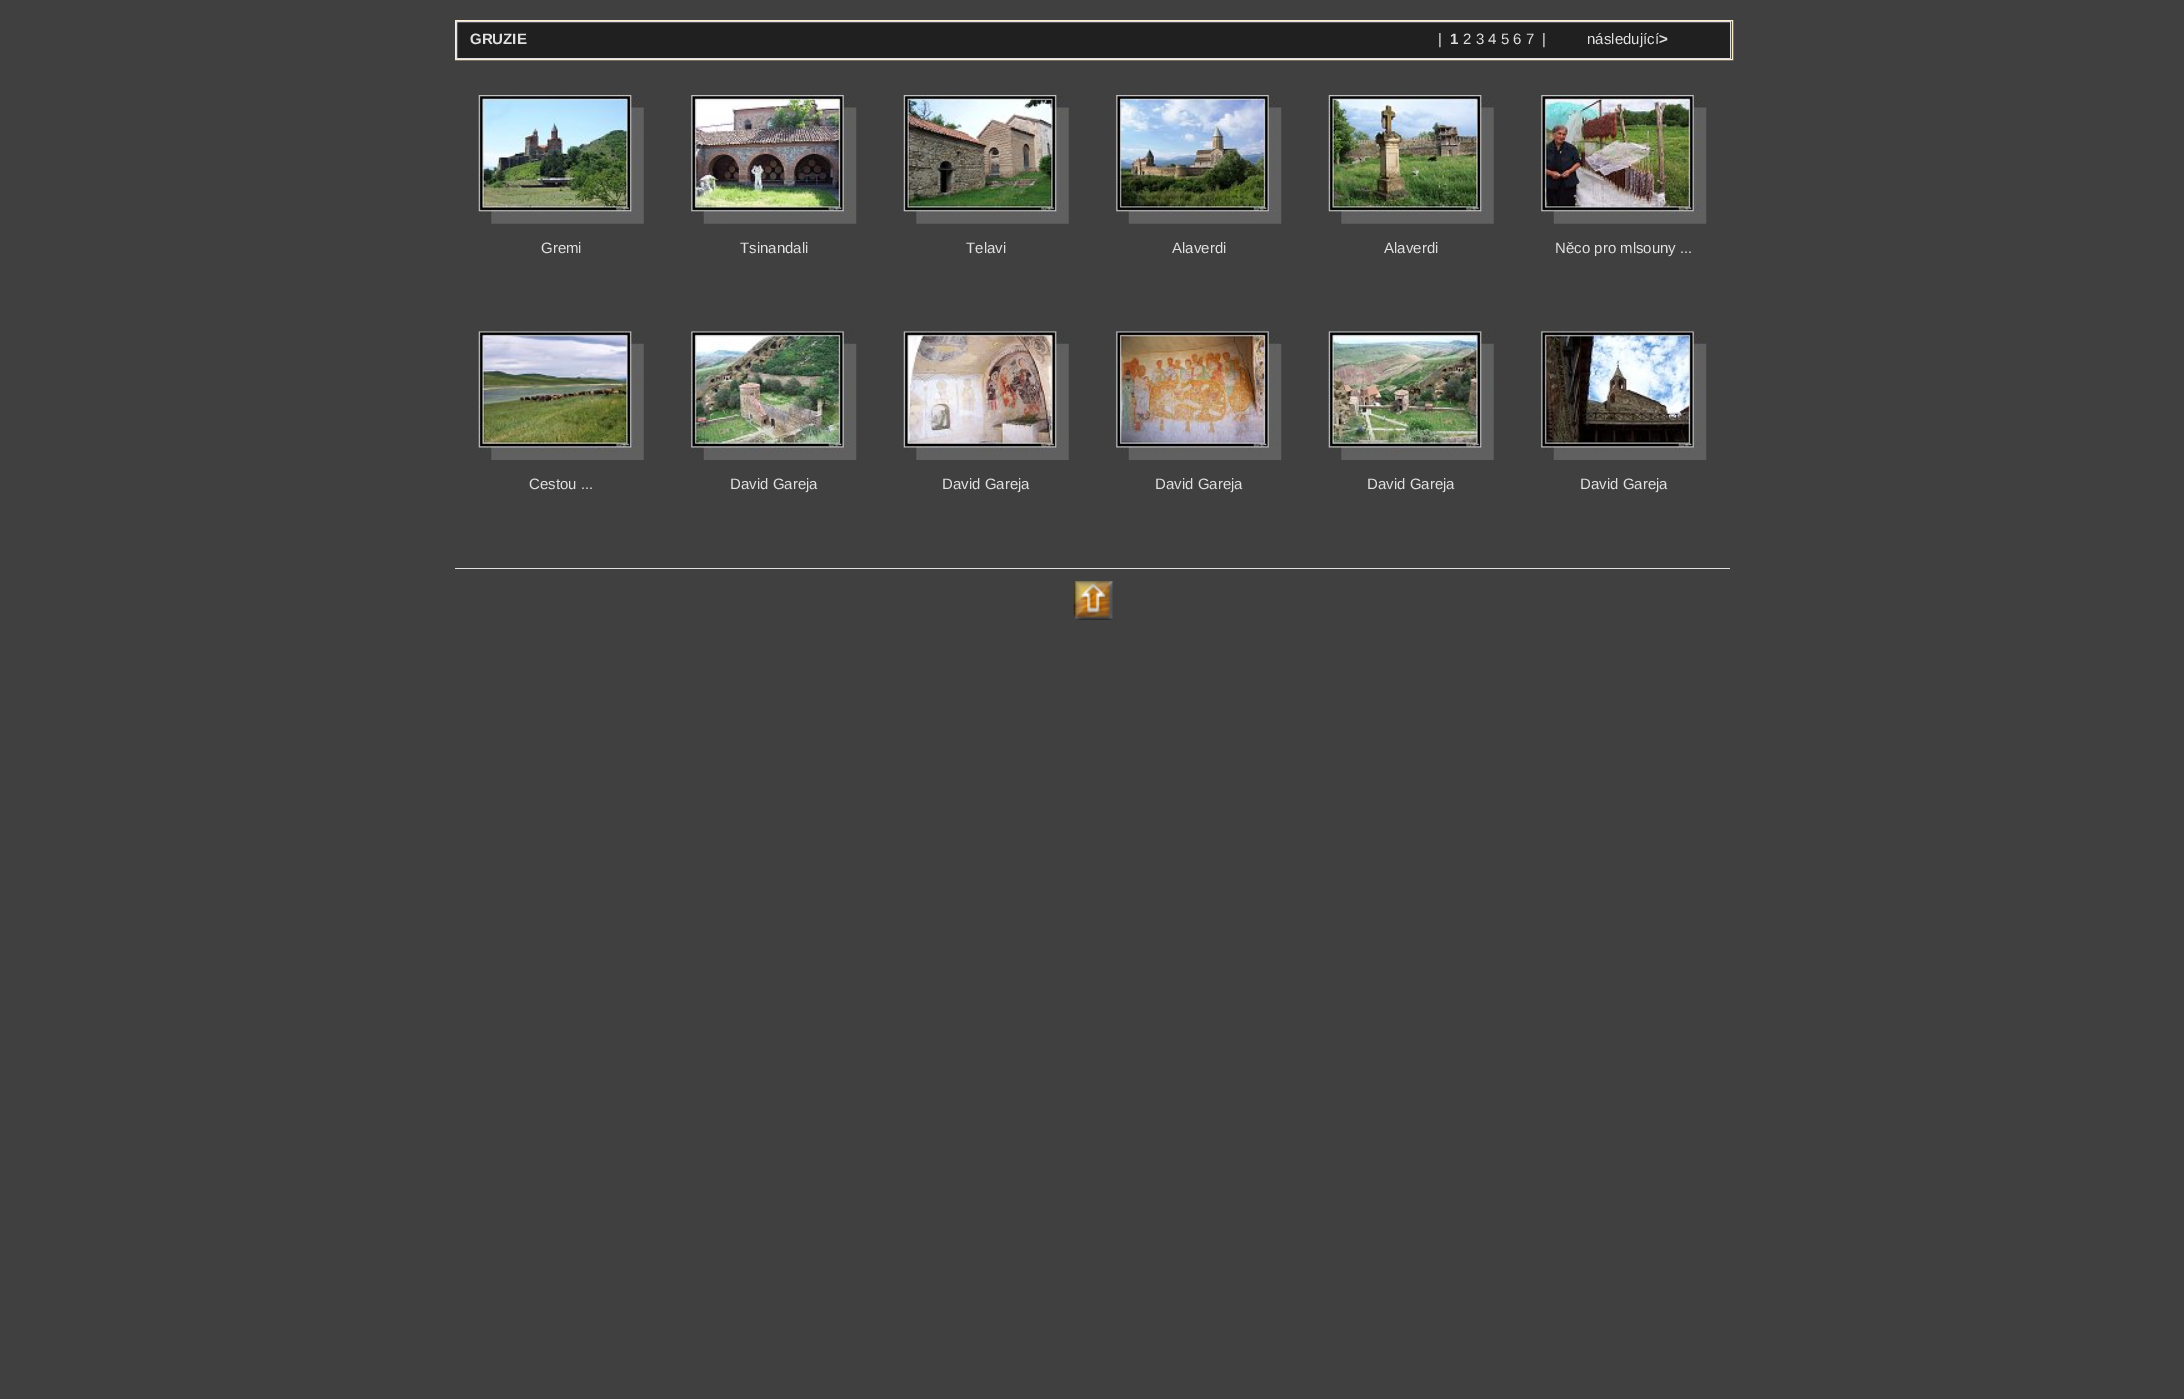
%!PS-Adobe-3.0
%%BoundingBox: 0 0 2184 1399
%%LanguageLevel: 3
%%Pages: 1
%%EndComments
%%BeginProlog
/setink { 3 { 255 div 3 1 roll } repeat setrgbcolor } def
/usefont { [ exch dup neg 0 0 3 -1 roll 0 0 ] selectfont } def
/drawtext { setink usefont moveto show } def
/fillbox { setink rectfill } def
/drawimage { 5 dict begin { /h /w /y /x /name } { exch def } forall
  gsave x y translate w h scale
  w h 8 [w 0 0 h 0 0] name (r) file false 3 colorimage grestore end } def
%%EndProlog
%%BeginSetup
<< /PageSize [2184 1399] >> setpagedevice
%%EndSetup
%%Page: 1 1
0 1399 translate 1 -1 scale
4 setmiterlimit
0 0 2184 1399 64 64 64 fillbox
457 21 1275 38 32 32 32 fillbox
254 238 206 setink
455.5 20.5 1277 39 rectstroke
224 224 224 setink
456.5 21.5 1274 37 rectstroke
(GRUZIE) 470 44 /LiberationSans-Bold 15 224 224 224 drawtext
(|) 1438 44 /LiberationSans-Regular 15 224 224 224 drawtext
(1) 1450 44 /LiberationSans-Bold 15 224 224 224 drawtext
(2 3 4 5 6 7) 1463 44 /LiberationSans-Regular 15 224 224 224 drawtext
(|) 1542 44 /LiberationSans-Regular 15 224 224 224 drawtext
(následující) 1587 44 /LiberationSans-Regular 15 224 224 224 drawtext
(>) 1659 44 /LiberationSans-Bold 15 224 224 224 drawtext
(assets/img1.rgb) 478 95 166 129 drawimage
(Gremi) 541 253 /LiberationSans-Regular 15 224 224 224 drawtext
(assets/img2.rgb) 691 95 166 129 drawimage
(Tsinandali) 740 253 /LiberationSans-Regular 15 224 224 224 drawtext
(assets/img3.rgb) 903 95 166 129 drawimage
(Telavi) 966 253 /LiberationSans-Regular 15 224 224 224 drawtext
(assets/img4.rgb) 1116 95 166 129 drawimage
(Alaverdi) 1172 253 /LiberationSans-Regular 15 224 224 224 drawtext
(assets/img5.rgb) 1328 95 166 129 drawimage
(Alaverdi) 1384 253 /LiberationSans-Regular 15 224 224 224 drawtext
(assets/img6.rgb) 1541 95 166 129 drawimage
(Něco pro mlsouny ...) 1555 253 /LiberationSans-Regular 15 224 224 224 drawtext
(assets/img7.rgb) 478 331 166 129 drawimage
(Cestou ...) 529 489 /LiberationSans-Regular 15 224 224 224 drawtext
(assets/img8.rgb) 691 331 166 129 drawimage
(David Gareja) 730 489 /LiberationSans-Regular 15 224 224 224 drawtext
(assets/img9.rgb) 903 331 166 129 drawimage
(David Gareja) 942 489 /LiberationSans-Regular 15 224 224 224 drawtext
(assets/img10.rgb) 1116 331 166 129 drawimage
(David Gareja) 1155 489 /LiberationSans-Regular 15 224 224 224 drawtext
(assets/img11.rgb) 1328 331 166 129 drawimage
(David Gareja) 1367 489 /LiberationSans-Regular 15 224 224 224 drawtext
(assets/img12.rgb) 1541 331 166 129 drawimage
(David Gareja) 1580 489 /LiberationSans-Regular 15 224 224 224 drawtext
455 568 1275 1 224 224 224 fillbox
(assets/img13.rgb) 1073 581 40 39 drawimage
showpage
%%EOF
